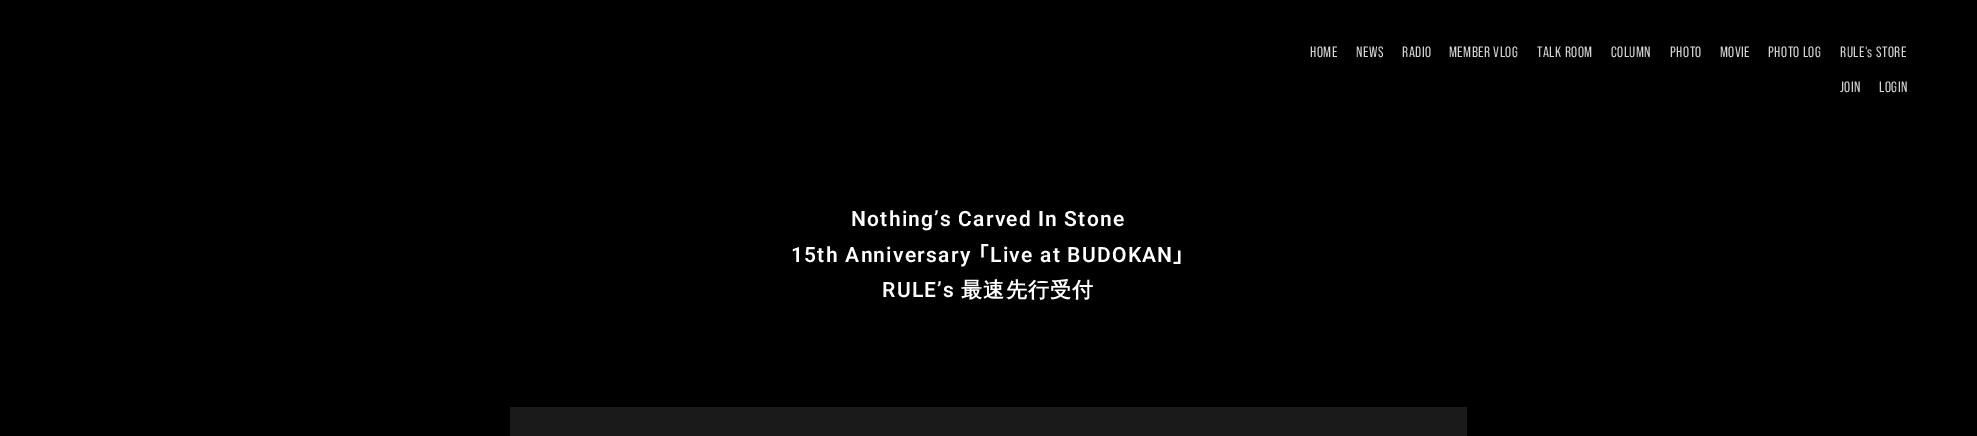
%!PS-Adobe-3.0
%%BoundingBox: 0 0 1977 436
%%LanguageLevel: 3
%%Pages: 1
%%EndComments
%%BeginProlog
/setink { 3 { 255 div 3 1 roll } repeat setrgbcolor } def
/usefont { [ exch dup neg 0 0 3 -1 roll 0 0 ] selectfont } def
/fillbox { setink rectfill } def
%%EndProlog
%%BeginSetup
<< /PageSize [1977 436] >> setpagedevice
%%EndSetup
%%Page: 1 1
0 436 translate 1 -1 scale
4 setmiterlimit
0 0 1977 436 0 0 0 fillbox
/BebasNeue-Regular 15 usefont
213 213 213 setink
1310 57 moveto 0.5 0 (HOME) ashow
1356 57 moveto 0.5 0 (NEWS) ashow
1402 57 moveto 0.5 0 (RADIO) ashow
1449 57 moveto 0.5 0 (MEMBER VLOG) ashow
1537 57 moveto 0.5 0 (TALK ROOM) ashow
1611 57 moveto 0.5 0 (COLUMN) ashow
1670 57 moveto 0.5 0 (PHOTO) ashow
1720 57 moveto 0.5 0 (MOVIE) ashow
1768 57 moveto 0.5 0 (PHOTO LOG) ashow
1840 57 moveto 0.5 0 (RULE's STORE) ashow
1840 92 moveto 0.5 0 (JOIN) ashow
1879 92 moveto 0.5 0 (LOGIN) ashow
/Roboto-SemiBold 21 usefont
255 255 255 setink
851 226 moveto -0.5 0 32 1.25 0 (Nothingʼs Carved In Stone) awidthshow
791 262 moveto 1.25 0 (15th Anniversary) ashow
/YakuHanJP-Bold 21 usefont
977 262 moveto 1.25 0 (「) ashow
/Roboto-SemiBold 21 usefont
990 262 moveto 1.25 0 (Live at BUDOKAN) ashow
/YakuHanJP-Bold 21 usefont
1173 262 moveto 1.25 0 (」) ashow
/Roboto-SemiBold 21 usefont
882 297 moveto 1.25 0 (RULE’s) ashow
/WenQuanYiZenHei-Bold 21 usefont
961 297 moveto 1.25 0 (最速先行受付) ashow
510 407 957 29 26 26 26 fillbox
showpage
%%EOF
